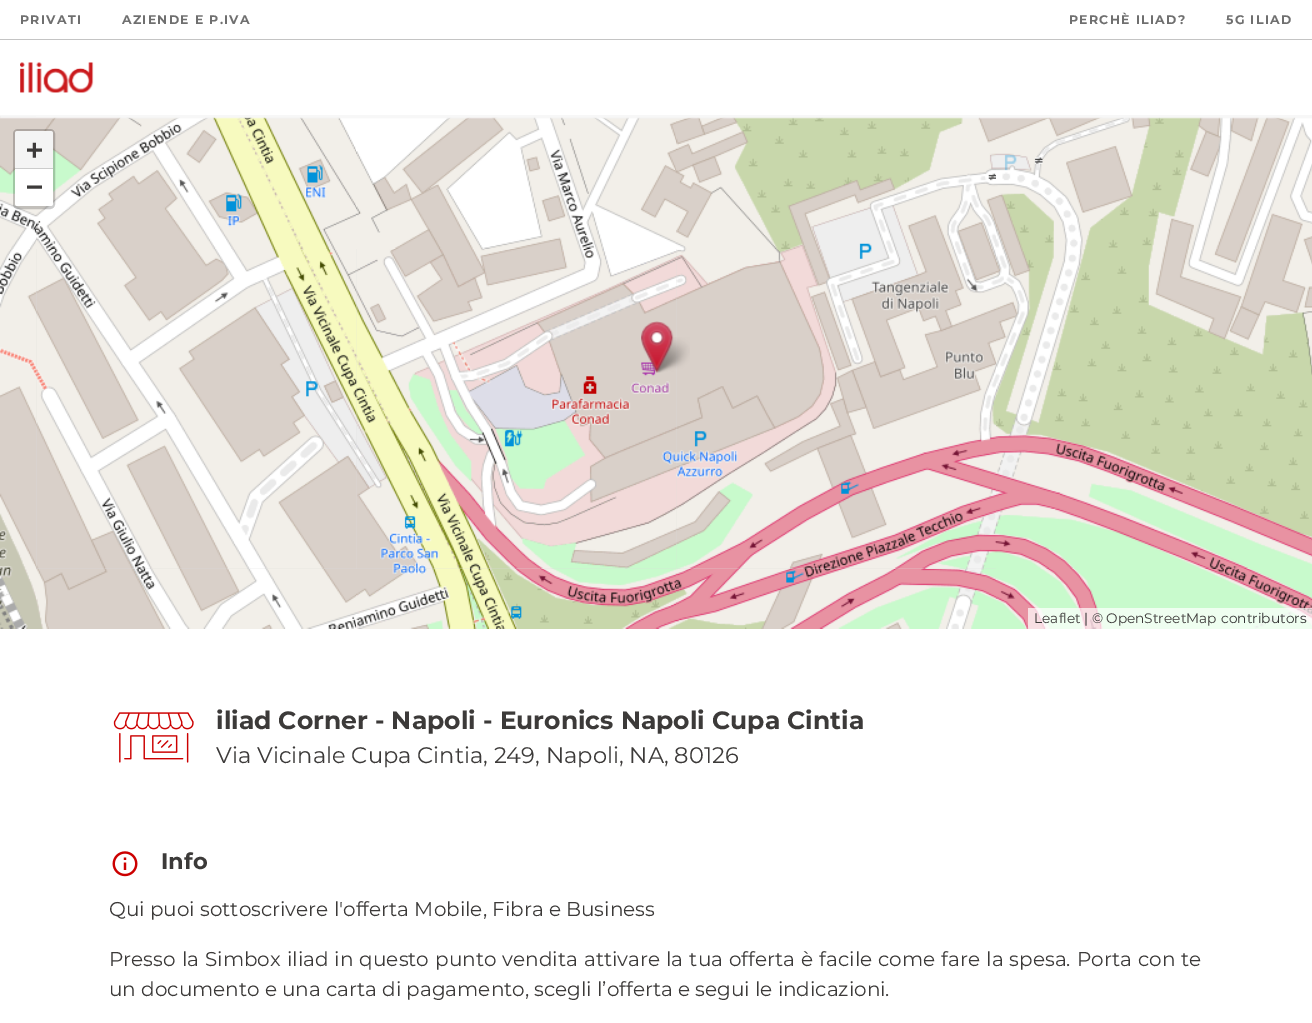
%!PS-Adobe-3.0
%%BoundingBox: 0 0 1312 1023
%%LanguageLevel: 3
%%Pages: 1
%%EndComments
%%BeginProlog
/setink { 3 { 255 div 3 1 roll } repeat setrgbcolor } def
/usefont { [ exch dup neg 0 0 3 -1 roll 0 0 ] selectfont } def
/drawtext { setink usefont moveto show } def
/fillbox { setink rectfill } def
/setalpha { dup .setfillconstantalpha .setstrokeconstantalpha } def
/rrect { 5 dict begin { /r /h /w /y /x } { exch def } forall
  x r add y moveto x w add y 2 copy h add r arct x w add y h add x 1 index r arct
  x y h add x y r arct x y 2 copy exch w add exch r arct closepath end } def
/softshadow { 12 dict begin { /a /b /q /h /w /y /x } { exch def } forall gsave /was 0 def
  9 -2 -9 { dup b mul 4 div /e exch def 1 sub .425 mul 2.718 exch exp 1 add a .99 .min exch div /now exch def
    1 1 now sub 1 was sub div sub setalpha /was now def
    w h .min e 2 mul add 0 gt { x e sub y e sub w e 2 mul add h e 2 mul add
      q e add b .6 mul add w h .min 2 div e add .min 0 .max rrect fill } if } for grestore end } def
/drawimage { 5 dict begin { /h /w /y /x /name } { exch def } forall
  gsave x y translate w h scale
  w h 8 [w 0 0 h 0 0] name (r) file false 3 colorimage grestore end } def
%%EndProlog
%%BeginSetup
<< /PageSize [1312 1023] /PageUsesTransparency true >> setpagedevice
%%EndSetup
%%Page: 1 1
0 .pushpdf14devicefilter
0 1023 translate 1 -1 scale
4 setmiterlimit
0 0 1312 1023 255 255 255 fillbox
0 39 1312 1 196 196 196 fillbox
/Montserrat-Thin 12.5 usefont
111 111 111 setink
20 24 moveto 1.25 0 (PRIVATI) ashow
122 24 moveto 1.25 0 (AZIENDE E P.IVA) ashow
1069 24 moveto 1.25 0 (PERCHÈ ILIAD?) ashow
1226 24 moveto 1.25 0 (5G ILIAD) ashow
(assets/img2.rgb) 0 116 36 133 drawimage
36 249 960 320 221 221 221 fillbox
(assets/img4.rgb) 356 117 320 132 drawimage
(assets/img9.rgb) 356 249 321 320 drawimage
(assets/img8.rgb) 36 248 321 321 drawimage
(assets/img3.rgb) 36 117 320 132 drawimage
(assets/img5.rgb) 676 117 320 132 drawimage
(assets/img6.rgb) 996 117 316 132 drawimage
gsave
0 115 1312 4 rectclip
246 246 246 setink
0 43 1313 75 0 0.5 1 softshadow
grestore
(assets/img1.rgb) 20 62 74 31 drawimage
(assets/img7.rgb) 0 249 36 320 drawimage
(assets/img10.rgb) 676 249 320 320 drawimage
(assets/img11.rgb) 996 249 316 320 drawimage
(assets/img12.rgb) 0 569 36 60 drawimage
(assets/img13.rgb) 36 569 320 60 drawimage
(assets/img14.rgb) 356 569 320 60 drawimage
(assets/img15.rgb) 676 569 320 60 drawimage
(assets/img16.rgb) 996 569 316 60 drawimage
(assets/img18.rgb) 652 337 38 36 drawimage
(assets/img17.rgb) 641 321 33 52 drawimage
0.2 setalpha
0 0 0 setink
3 setlinewidth
14.5 130.5 39 77 3.5 rrect stroke
1 setalpha
244 244 244 setink
17.5 131 moveto 50.5 131 lineto 52 131 53 132 53 133.5 curveto 53 169 lineto 15 169 lineto 15 133.5 lineto 15 132 16 131 17.5 131 curveto closepath fill
15 168 38 1 204 204 204 fillbox
(+) 26 159 /DejaVuSansMono-Bold 28 60 58 57 drawtext
255 255 255 setink
15 169 moveto 53 169 lineto 53 203.5 lineto 53 205 52 206 50.5 206 curveto 17.5 206 lineto 16 206 15 205 15 203.5 curveto closepath fill
(−) 26 196 /DejaVuSansMono-Bold 28 60 58 57 drawtext
0.7 setalpha
1028 608 284 21 255 255 255 fillbox
1 setalpha
(Leaflet) 1034 623 /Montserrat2-Thin 13.75 60 58 57 drawtext
(| ©) 1084 623 /Montserrat2-Thin 13.75 51 51 51 drawtext
(OpenStreetMap) 1106 623 /Montserrat2-Thin 13.75 60 58 57 drawtext
(contributors) 1221 623 /Montserrat2-Thin 13.75 51 51 51 drawtext
(assets/img19.rgb) 113 712 81 51 drawimage
(iliad Corner - Napoli - Euronics Napoli Cupa Cintia) 216 729 /Montserrat-Thin 25 60 58 57 drawtext
(Via Vicinale Cupa Cintia, 249, Napoli, NA, 80126) 216 763 /Montserrat2-Thin 22.5 60 58 57 drawtext
(assets/img20.rgb) 112 851 26 26 drawimage
(Info) 161 869 /Montserrat-Thin 22.5 60 58 57 drawtext
(Qui puoi sottoscrivere l'offerta Mobile, Fibra e Business) 109 916 /Montserrat2-Thin 20 60 58 57 drawtext
109 966 moveto 0.9 0 32 (Presso la Simbox iliad in questo punto vendita attivare la tua offerta è facile come fare la spesa. Porta con te) widthshow
(un documento e una carta di pagamento, scegli l’offerta e segui le indicazioni.) 109 996 /Montserrat2-Thin 20 60 58 57 drawtext
.poppdf14devicefilter showpage
%%EOF
